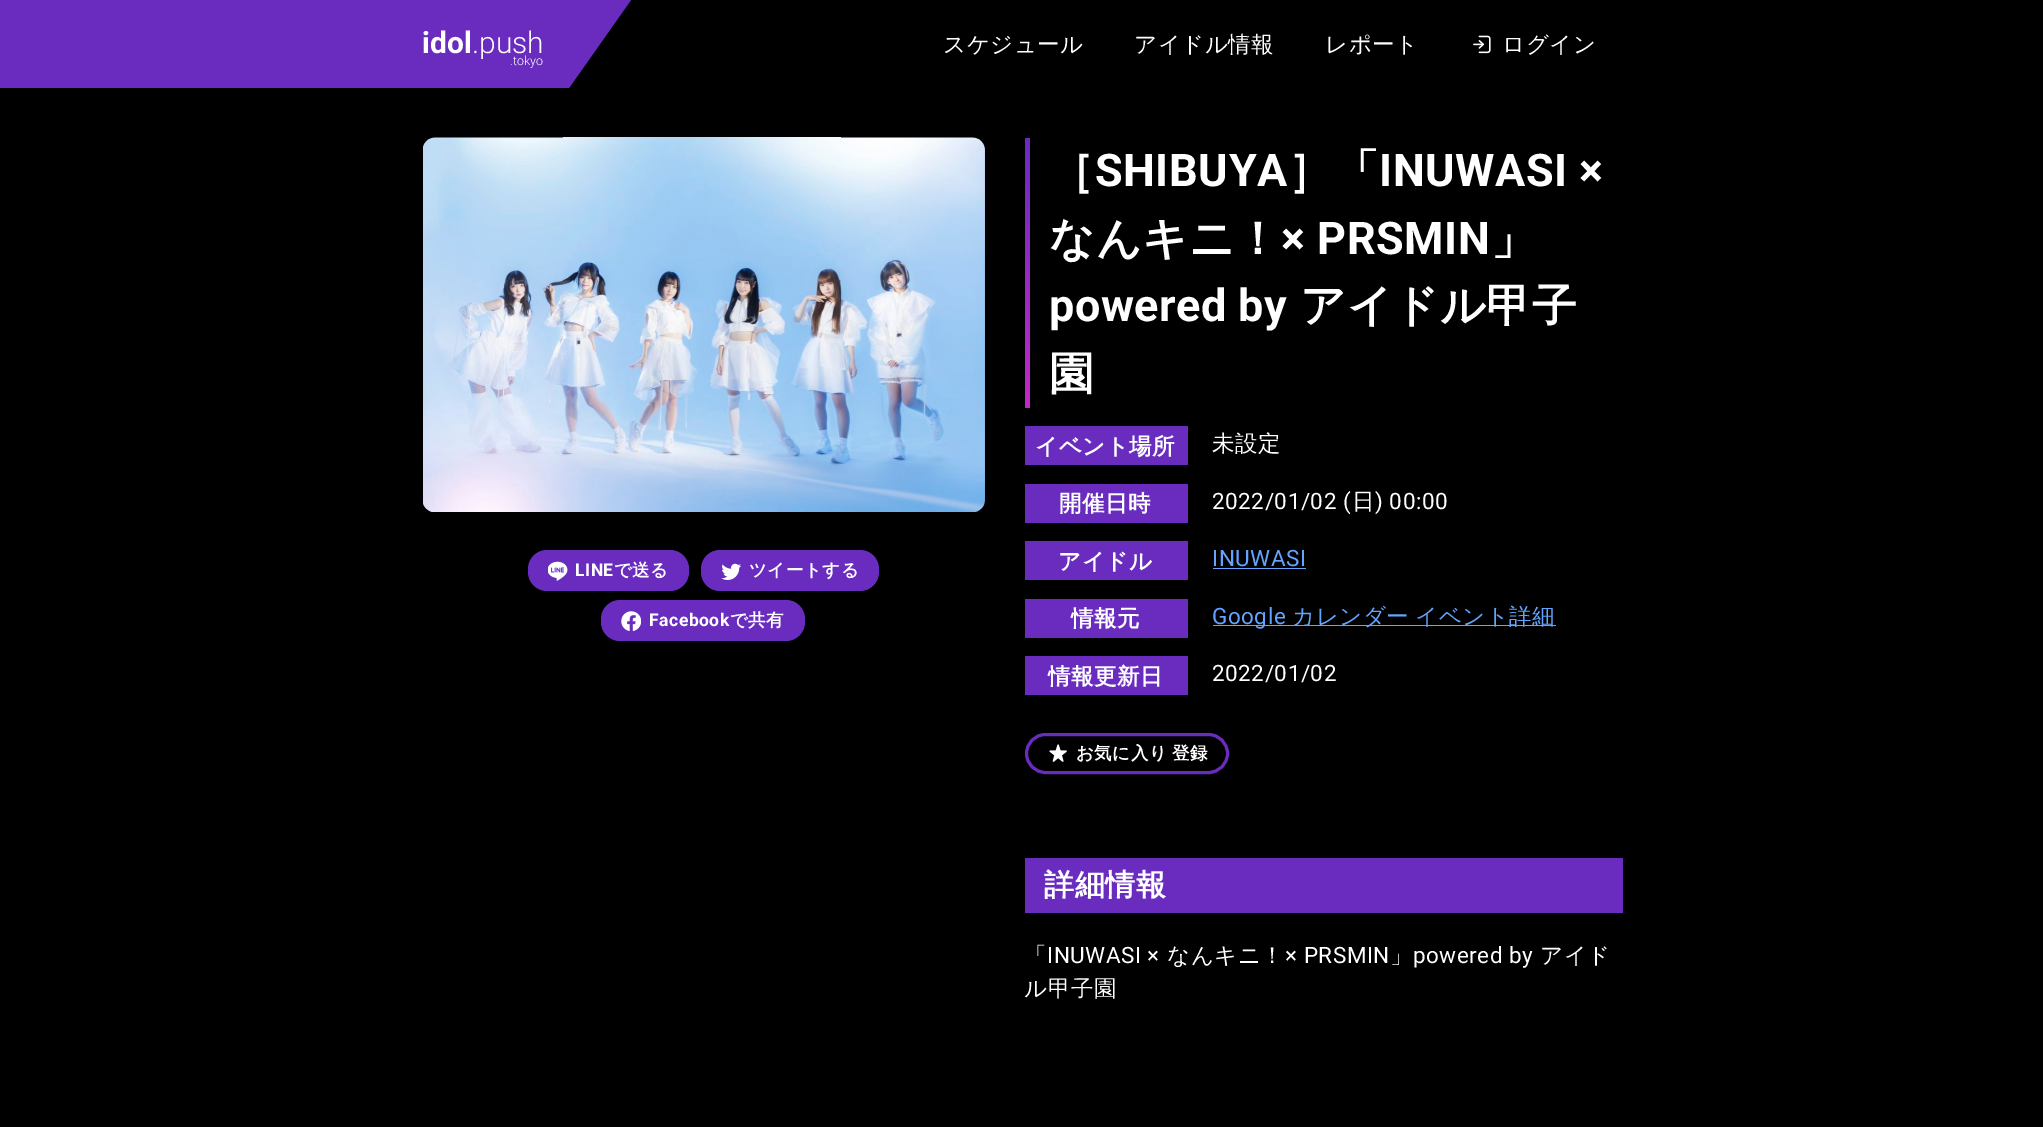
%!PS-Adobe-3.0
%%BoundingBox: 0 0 2043 1127
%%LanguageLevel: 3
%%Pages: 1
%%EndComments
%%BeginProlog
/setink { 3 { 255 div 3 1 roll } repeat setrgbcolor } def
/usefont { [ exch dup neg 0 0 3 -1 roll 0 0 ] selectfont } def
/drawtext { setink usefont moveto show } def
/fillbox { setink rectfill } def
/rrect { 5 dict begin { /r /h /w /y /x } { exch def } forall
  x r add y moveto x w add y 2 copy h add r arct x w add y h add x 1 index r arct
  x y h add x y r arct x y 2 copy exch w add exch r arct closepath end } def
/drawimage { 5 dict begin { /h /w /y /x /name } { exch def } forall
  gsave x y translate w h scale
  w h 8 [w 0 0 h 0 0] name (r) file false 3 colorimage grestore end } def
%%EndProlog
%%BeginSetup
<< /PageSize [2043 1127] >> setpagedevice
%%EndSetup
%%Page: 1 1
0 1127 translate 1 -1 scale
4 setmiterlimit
0 0 2043 1127 0 0 0 fillbox
0 0 569 88 105 44 191 fillbox
(idol) 422 53 /Roboto-Bold 30 255 255 255 drawtext
(.push) 472 53 /Roboto-Light 30 255 255 255 drawtext
(.tokyo) 510 65 /Roboto-Light 12.5 255 255 255 drawtext
105 44 191 setink
569 0 moveto 631 0 lineto 569 88 lineto closepath fill
/WenQuanYiZenHei-Medium 22.5 usefont
255 255 255 setink
943 52 moveto 0.5 0 (スケジュール) ashow
1134 52 moveto 0.5 0 (アイドル情報) ashow
1325 52 moveto 0.5 0 (レポート) ashow
(assets/img1.rgb) 1473 35 18 19 drawimage
1502 52 moveto 0.5 0 (ログイン) ashow
(assets/img2.rgb) 423 137 562 375 drawimage
105 44 191 setink
528 550 161 41 19 rrect fill
(assets/img3.rgb) 548 561 20 20 drawimage
/Roboto-Bold 17.5 usefont
255 255 255 setink
575 576 moveto 0.5 0 (LINE) ashow
/WenQuanYiZenHei-Bold 17.5 usefont
614 576 moveto 0.5 0 (で送る) ashow
105 44 191 setink
701 550 178 41 19 rrect fill
(assets/img4.rgb) 721 563 20 17 drawimage
255 255 255 setink
749 576 moveto 0.5 0 (ツイートする) ashow
105 44 191 setink
601 600 204 41 19 rrect fill
(assets/img5.rgb) 621 611 20 20 drawimage
/Roboto-Bold 17.5 usefont
255 255 255 setink
649 626 moveto 0.5 0 (Facebook) ashow
/WenQuanYiZenHei-Bold 17.5 usefont
730 626 moveto 0.5 0 (で共有) ashow
gsave 1025 138 moveto 1030 138 lineto 1030 408 lineto 1025 408 lineto closepath clip newpath
<< /ShadingType 2 /ColorSpace /DeviceRGB /Coords [1028 138 1028 408] /Extend [true true] /Function << /FunctionType 2 /Domain [0 1] /C0 [0.412 0.173 0.749] /C1 [0.776 0.145 0.8] /N 1 >> >> shfill grestore
/WenQuanYiZenHei-Bold 45 usefont
1049 186 moveto 0.5 0 (［) ashow
/Roboto-Bold 45 usefont
1095 186 moveto 0.5 0 (SHIBUYA) ashow
/WenQuanYiZenHei-Bold 45 usefont
1288 186 moveto 0.5 0 (］「) ashow
/Roboto-Bold 45 usefont
1379 186 moveto 0.5 0 (INUWASI ×) ashow
/WenQuanYiZenHei-Bold 45 usefont
1049 254 moveto 0.5 0 (なんキニ！) ashow
/Roboto-Bold 45 usefont
1281 254 moveto 0.5 0 (× PRSMIN) ashow
/WenQuanYiZenHei-Bold 45 usefont
1491 254 moveto 0.5 0 (」) ashow
/Roboto-Bold 45 usefont
1049 321 moveto 0.5 0 (powered by) ashow
/WenQuanYiZenHei-Bold 45 usefont
1300 321 moveto 0.5 0 (アイドル甲子) ashow
1049 389 moveto 0.5 0 (園) ashow
1025 426 163 39 105 44 191 fillbox
/WenQuanYiZenHei-Bold 22.5 usefont
255 255 255 setink
1035 454 moveto 0.5 0 (イベント場所) ashow
/WenQuanYiZenHei-Medium 22.5 usefont
1212 451 moveto 0.5 0 (未設定) ashow
1025 484 163 39 105 44 191 fillbox
/WenQuanYiZenHei-Bold 22.5 usefont
255 255 255 setink
1059 511 moveto 0.5 0 (開催日時) ashow
/Roboto-Regular 22.5 usefont
1212 509 moveto 0.5 0 (2022/01/02 \() ashow
/WenQuanYiZenHei-Medium 22.5 usefont
1352 509 moveto 0.5 0 (日) ashow
/Roboto-Regular 22.5 usefont
1375 509 moveto 0.5 0 (\) 00:00) ashow
1025 541 163 39 105 44 191 fillbox
/WenQuanYiZenHei-Bold 22.5 usefont
255 255 255 setink
1058 569 moveto 0.5 0 (アイドル) ashow
/Roboto-Regular 22.5 usefont
100 164 254 setink
1212 566 moveto 0.5 0 (INUWASI) ashow
1213 568 93 1 100 164 254 fillbox
1025 599 163 39 105 44 191 fillbox
/WenQuanYiZenHei-Bold 22.5 usefont
255 255 255 setink
1071 626 moveto 0.5 0 (情報元) ashow
1213 625 343 1 100 164 254 fillbox
/Roboto-Regular 22.5 usefont
1212 624 moveto 0.5 0 (Google) ashow
/WenQuanYiZenHei-Medium 22.5 usefont
1292 624 moveto -1 0 32 0.5 0 (カレンダー イベント詳細) awidthshow
1025 656 163 39 105 44 191 fillbox
/WenQuanYiZenHei-Bold 22.5 usefont
255 255 255 setink
1048 684 moveto 0.5 0 (情報更新日) ashow
/Roboto-Regular 22.5 usefont
1212 681 moveto 0.5 0 (2022/01/02) ashow
105 44 191 setink
3 setlinewidth
1026.5 734.5 201 38 19 rrect stroke
(assets/img6.rgb) 1049 744 18 18 drawimage
/WenQuanYiZenHei-Bold 17.5 usefont
255 255 255 setink
1076 759 moveto 0.5 0 (お気に入り) ashow
1172 759 moveto 0.5 0 (登録) ashow
1025 858 598 55 105 44 191 fillbox
/WenQuanYiZenHei-Bold 30 usefont
255 255 255 setink
1044 895 moveto 0.5 0 (詳細情報) ashow
/WenQuanYiZenHei-Medium 22.5 usefont
1024 963 moveto 0.5 0 (「) ashow
/Roboto-Regular 22.5 usefont
1047 963 moveto 0.5 0 (INUWASI ×) ashow
/WenQuanYiZenHei-Medium 22.5 usefont
1167 963 moveto 0.5 0 (なんキニ！) ashow
/Roboto-Regular 22.5 usefont
1285 963 moveto 0.5 0 (× PRSMIN) ashow
/WenQuanYiZenHei-Medium 22.5 usefont
1390 963 moveto 0.5 0 (」) ashow
/Roboto-Regular 22.5 usefont
1413 963 moveto 0.5 0 (powered by) ashow
/WenQuanYiZenHei-Medium 22.5 usefont
1540 963 moveto 0.5 0 (アイド) ashow
1024 996 moveto 0.5 0 (ル甲子園) ashow
showpage
%%EOF
